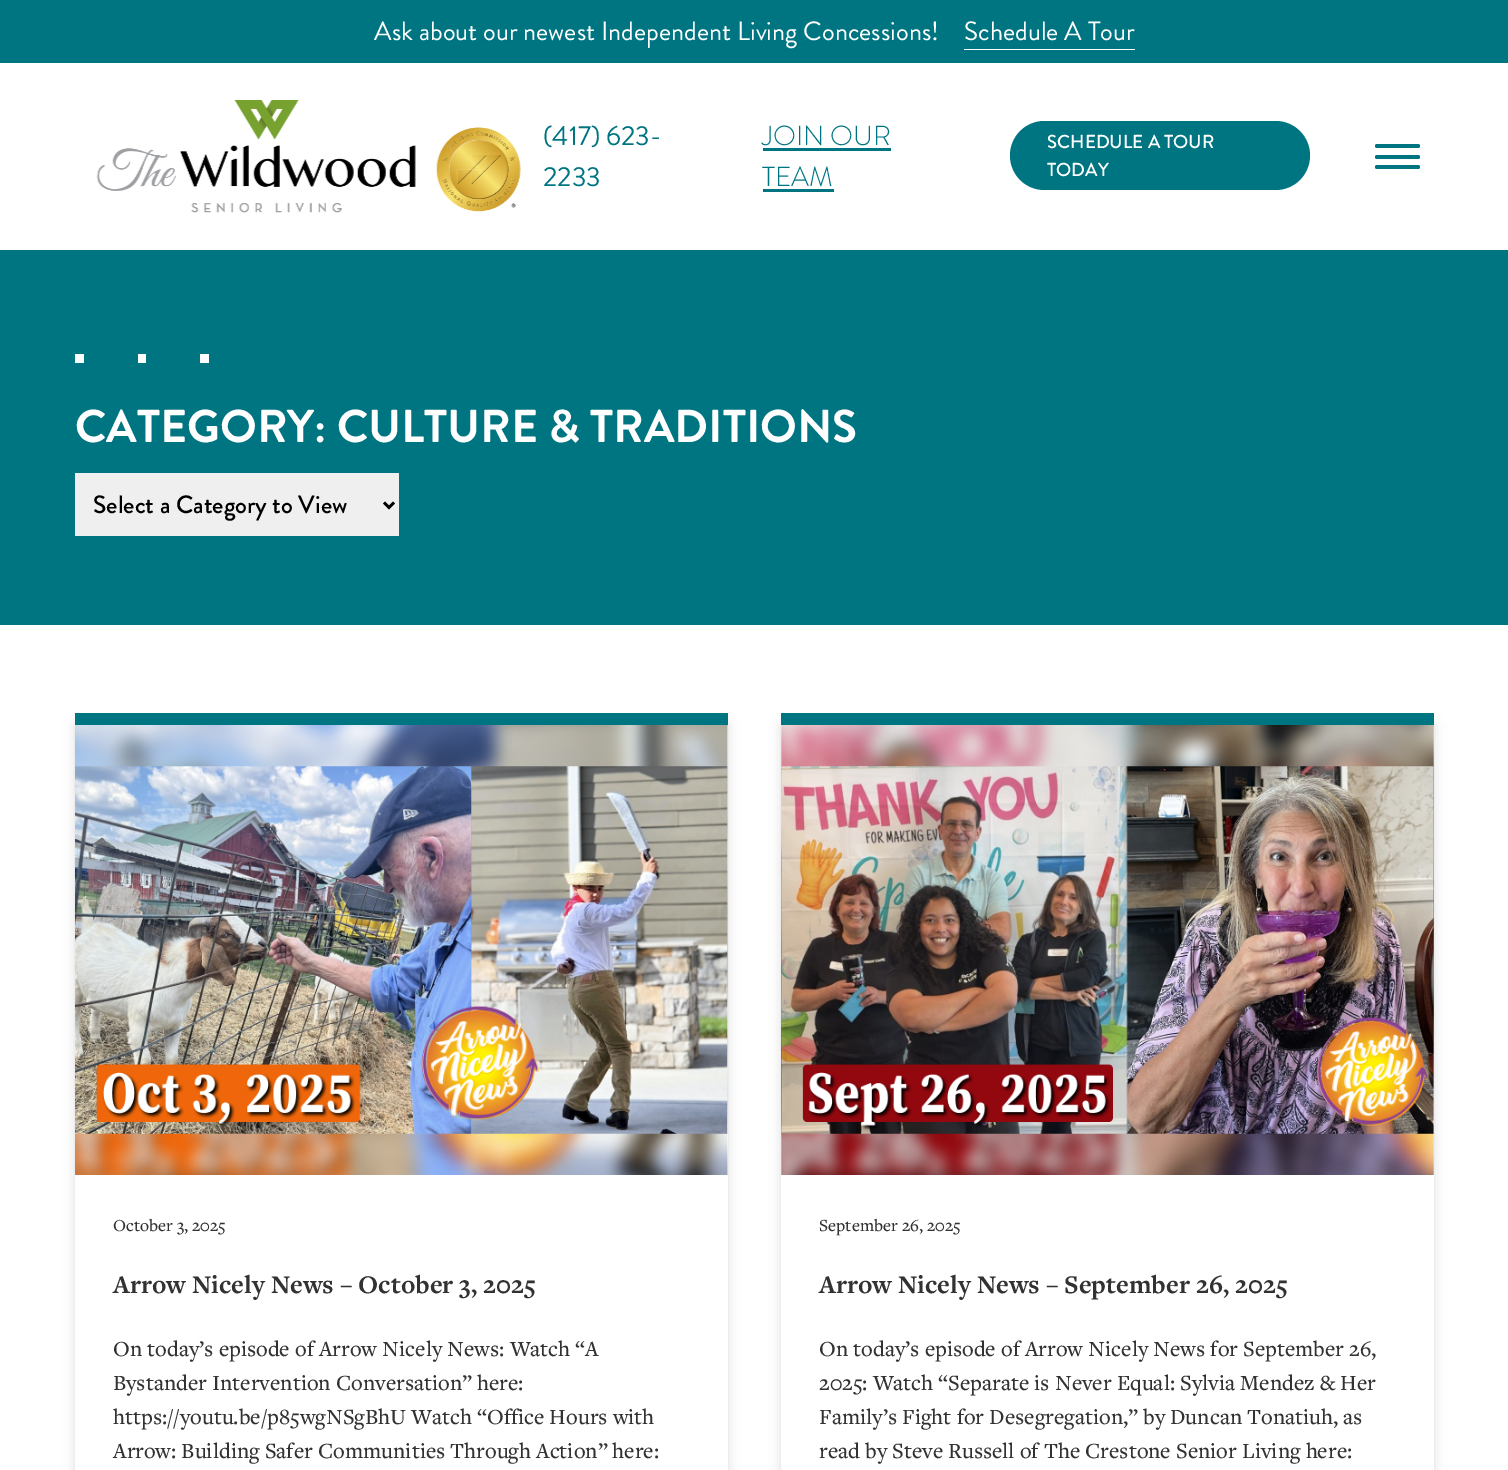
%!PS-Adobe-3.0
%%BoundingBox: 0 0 1508 1470
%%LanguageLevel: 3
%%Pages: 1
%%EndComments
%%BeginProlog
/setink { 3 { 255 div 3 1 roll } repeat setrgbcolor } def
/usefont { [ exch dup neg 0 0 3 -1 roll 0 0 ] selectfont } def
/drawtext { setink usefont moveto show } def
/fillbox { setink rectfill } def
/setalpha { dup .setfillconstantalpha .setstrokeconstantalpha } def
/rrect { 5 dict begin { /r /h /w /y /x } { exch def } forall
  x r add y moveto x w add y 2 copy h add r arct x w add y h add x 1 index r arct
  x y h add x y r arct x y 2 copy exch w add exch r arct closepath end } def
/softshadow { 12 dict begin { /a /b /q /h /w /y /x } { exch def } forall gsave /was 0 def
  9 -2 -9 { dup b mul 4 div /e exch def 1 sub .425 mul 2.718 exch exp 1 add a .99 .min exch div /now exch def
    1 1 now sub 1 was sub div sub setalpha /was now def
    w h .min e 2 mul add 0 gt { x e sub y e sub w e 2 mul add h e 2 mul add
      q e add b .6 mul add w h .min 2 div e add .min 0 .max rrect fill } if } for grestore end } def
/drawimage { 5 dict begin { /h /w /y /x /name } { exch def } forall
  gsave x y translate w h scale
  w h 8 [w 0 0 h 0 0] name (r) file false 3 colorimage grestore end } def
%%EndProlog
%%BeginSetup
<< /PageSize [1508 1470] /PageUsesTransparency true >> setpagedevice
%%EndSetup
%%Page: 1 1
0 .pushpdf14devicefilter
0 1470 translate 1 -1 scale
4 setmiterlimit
0 0 1508 1470 255 255 255 fillbox
0 0 1508 63 0 117 130 fillbox
(Ask about our newest Independent Living Concessions!) 374 40 /BrandonGrotesque-Regular 26.45 255 255 255 drawtext
(Schedule A Tour) 964 40 /BrandonGrotesque-Regular 26.45 255 255 255 drawtext
964 49 171 1 255 255 255 fillbox
(assets/img1.rgb) 96 100 425 113 drawimage
(\(417\) 623-) 543 145 /BrandonGrotesque-Regular 27.5 0 117 130 drawtext
(2233) 543 186 /BrandonGrotesque-Regular 27.5 0 117 130 drawtext
(JOIN OUR) 762 145 /BrandonGrotesque-Light 27.5 0 117 130 drawtext
763 148 128 3 0 117 130 fillbox
(TEAM) 762 186 /BrandonGrotesque-Light 27.5 0 117 130 drawtext
763 189 71 3 0 117 130 fillbox
1010 121 300 69 34.5 rrect fill
(SCHEDULE A TOUR) 1047 148 /BrandonGrotesque-Medium 18.75 255 255 255 drawtext
(TODAY) 1047 176 /BrandonGrotesque-Medium 18.75 255 255 255 drawtext
0 117 130 setink
1375 144 45 4 2 rrect fill
1375 155 45 4 2 rrect fill
1375 165 45 4 2 rrect fill
0 250 1508 375 0 117 130 fillbox
75 354 9 9 255 255 255 fillbox
138 354 8 9 255 255 255 fillbox
200 354 9 9 255 255 255 fillbox
(CATEGORY: CULTURE & TRADITIONS) 75 442 /BrandonGrotesque-Bold 46 255 255 255 drawtext
75 473 324 63 239 239 239 fillbox
0 0 0 setink
2.5 setlinewidth
384 502.5 moveto 389 507.5 lineto 394 502.5 lineto stroke
(Select a Category to View) 93 513 /BrandonGrotesque-Medium 25 0 0 0 drawtext
78 78 78 setink
75 725 653 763 0 6 0.22 softshadow
75 725 653 745 255 255 255 fillbox
75 713 653 12 0 117 130 fillbox
(assets/img2.rgb) 75 725 653 450 drawimage
(assets/img3.rgb) 75 766 653 368 drawimage
(October 3, 2025) 113 1231 /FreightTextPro-Medium 17.5 51 49 49 drawtext
(Arrow Nicely News – October 3, 2025) 113 1293 /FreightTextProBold-Bold 26.45 51 49 49 drawtext
(On today’s episode of Arrow Nicely News: Watch “A) 113 1356 /FreightTextPro-Medium 22.5 51 49 49 drawtext
(Bystander Intervention Conversation” here:) 113 1390 /FreightTextPro-Medium 22.5 51 49 49 drawtext
(https://youtu.be/p85wgNSgBhU Watch “Office Hours with) 113 1424 /FreightTextPro-Medium 22.5 51 49 49 drawtext
(Arrow: Building Safer Communities Through Action” here:) 113 1458 /FreightTextPro-Medium 22.5 51 49 49 drawtext
78 78 78 setink
781 725 653 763 0 6 0.22 softshadow
781 725 653 745 255 255 255 fillbox
781 713 653 12 0 117 130 fillbox
(assets/img4.rgb) 781 725 653 450 drawimage
(assets/img5.rgb) 781 766 653 368 drawimage
(September 26, 2025) 819 1231 /FreightTextPro-Medium 17.5 51 49 49 drawtext
(Arrow Nicely News – September 26, 2025) 819 1293 /FreightTextProBold-Bold 26.45 51 49 49 drawtext
(On today’s episode of Arrow Nicely News for September 26,) 819 1356 /FreightTextPro-Medium 22.5 51 49 49 drawtext
(2025: Watch “Separate is Never Equal: Sylvia Mendez & Her) 819 1390 /FreightTextPro-Medium 22.5 51 49 49 drawtext
(Family’s Fight for Desegregation,” by Duncan Tonatiuh, as) 819 1424 /FreightTextPro-Medium 22.5 51 49 49 drawtext
(read by Steve Russell of The Crestone Senior Living here:) 819 1458 /FreightTextPro-Medium 22.5 51 49 49 drawtext
.poppdf14devicefilter showpage
%%EOF
